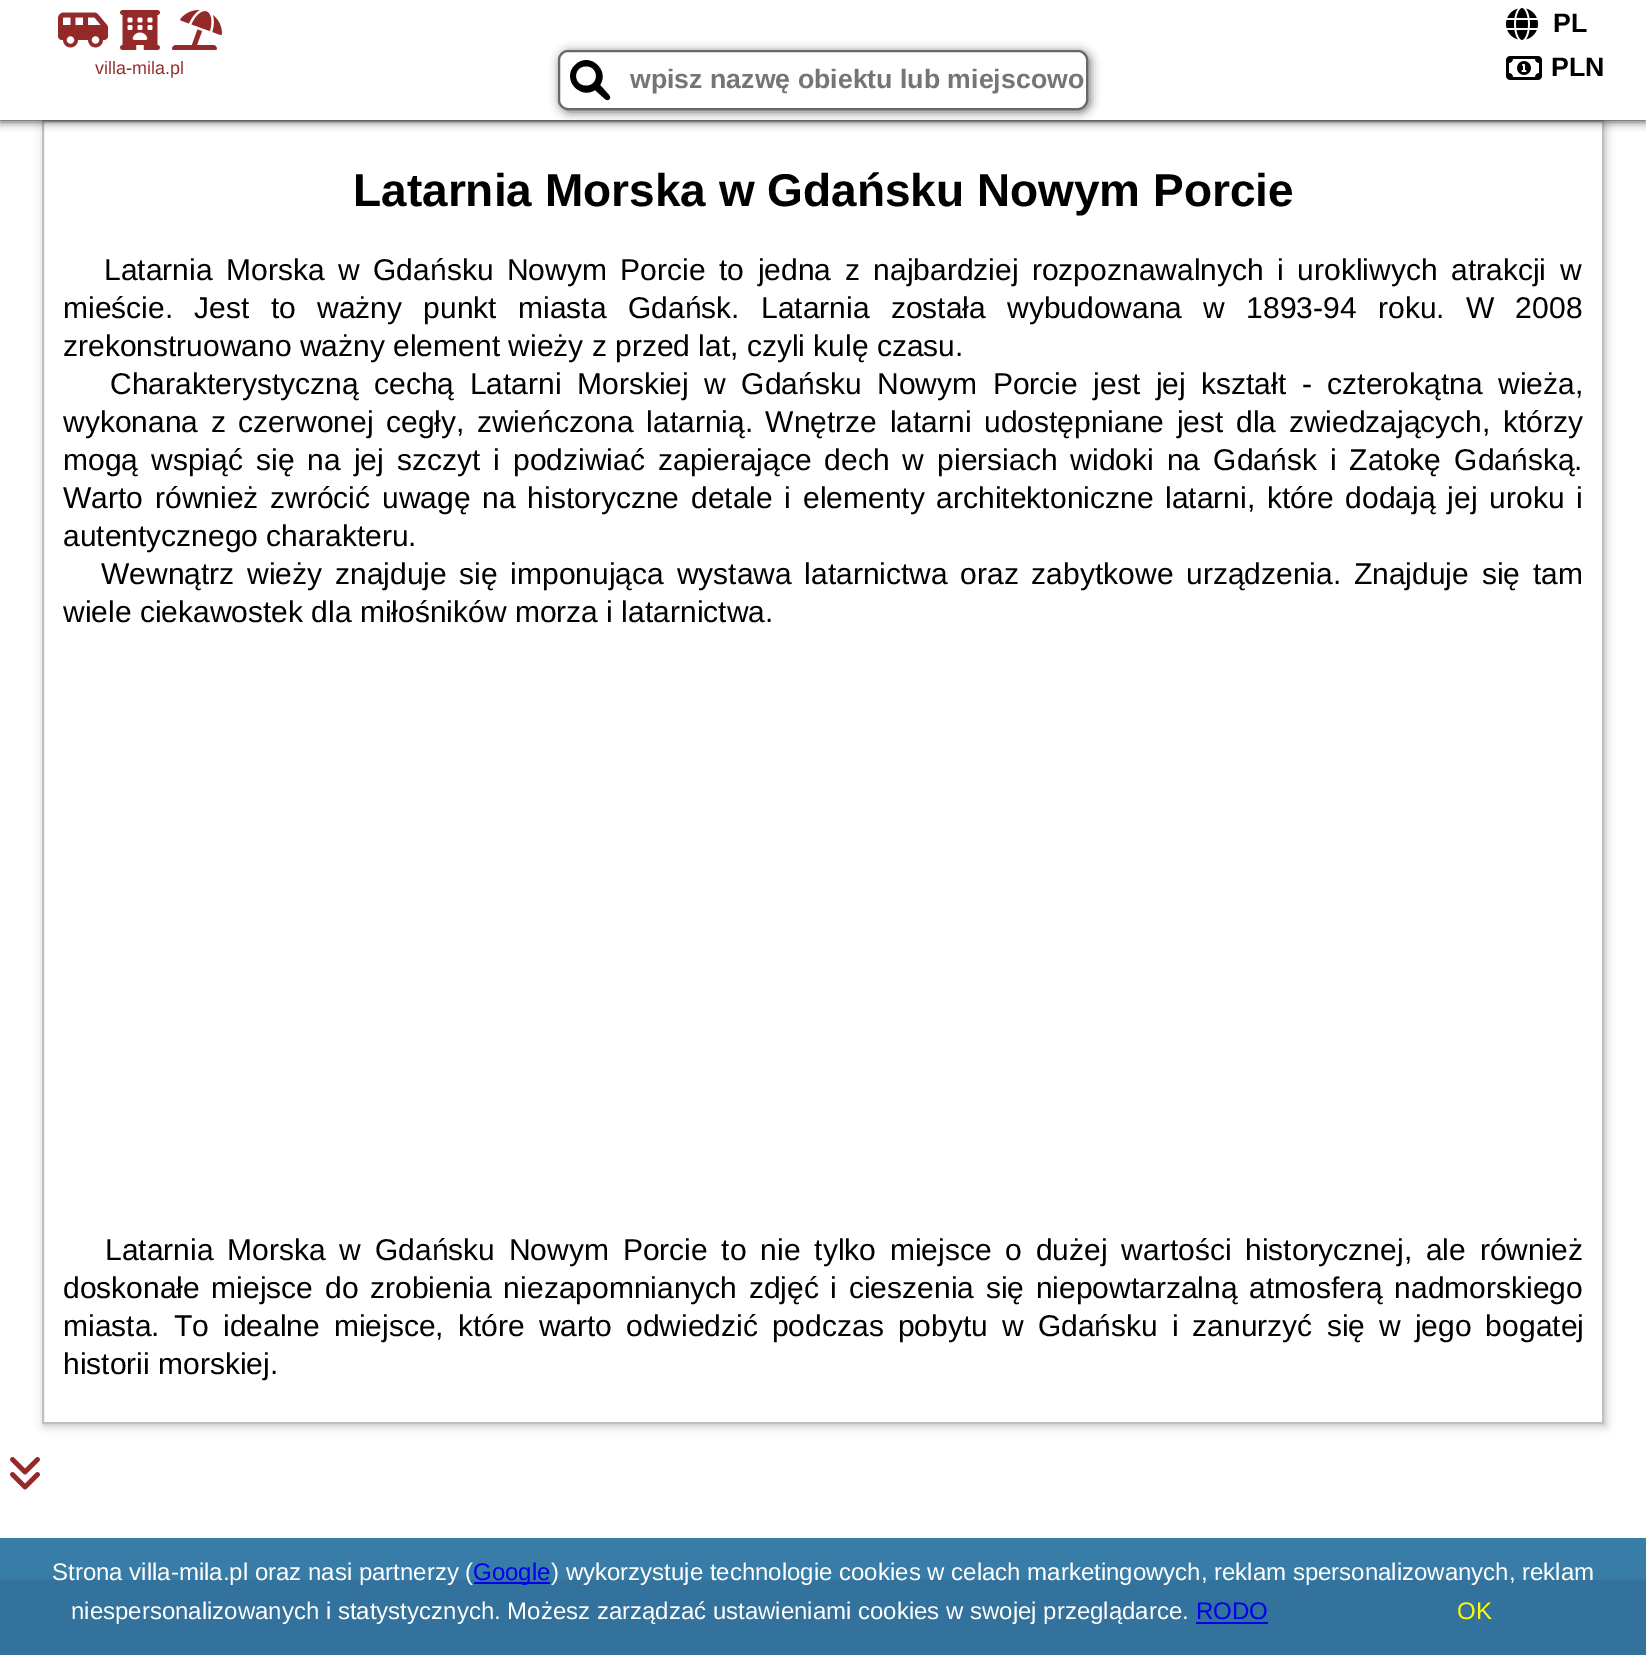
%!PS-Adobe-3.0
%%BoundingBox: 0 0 1646 1655
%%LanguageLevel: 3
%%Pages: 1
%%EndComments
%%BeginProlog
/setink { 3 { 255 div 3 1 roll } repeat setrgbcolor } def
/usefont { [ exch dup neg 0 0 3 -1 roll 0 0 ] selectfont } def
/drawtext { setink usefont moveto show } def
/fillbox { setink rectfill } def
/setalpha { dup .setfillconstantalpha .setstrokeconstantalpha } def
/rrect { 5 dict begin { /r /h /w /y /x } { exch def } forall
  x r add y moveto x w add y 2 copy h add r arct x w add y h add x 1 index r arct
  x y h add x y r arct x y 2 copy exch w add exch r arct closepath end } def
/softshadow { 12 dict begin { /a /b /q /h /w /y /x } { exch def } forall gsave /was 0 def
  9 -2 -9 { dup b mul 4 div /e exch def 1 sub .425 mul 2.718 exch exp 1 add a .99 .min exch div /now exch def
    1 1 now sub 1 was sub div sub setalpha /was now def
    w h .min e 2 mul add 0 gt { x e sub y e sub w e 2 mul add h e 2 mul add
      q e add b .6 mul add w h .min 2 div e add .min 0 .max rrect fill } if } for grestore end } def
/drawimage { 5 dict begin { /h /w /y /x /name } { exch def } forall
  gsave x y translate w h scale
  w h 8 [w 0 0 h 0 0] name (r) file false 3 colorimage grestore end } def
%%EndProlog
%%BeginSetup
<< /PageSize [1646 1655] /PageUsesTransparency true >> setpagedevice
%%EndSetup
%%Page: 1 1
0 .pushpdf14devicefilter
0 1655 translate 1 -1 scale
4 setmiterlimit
0 0 1646 1655 255 255 255 fillbox
0 1538 1646 42 56 125 167 fillbox
gsave
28 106 moveto 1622 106 lineto 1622 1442 lineto 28 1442 lineto closepath 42 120 moveto 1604 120 lineto 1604 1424 lineto 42 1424 lineto closepath eoclip newpath
192 192 192 setink
44 122 1562 1304 0 5 1 softshadow
grestore
192 192 192 setink
2 setlinewidth
43 121 1560 1302 rectstroke
0 0 0 setink
0 0 1646 120 0 5 1 softshadow
0 0 1646 120 255 255 255 fillbox
(assets/img1.rgb) 1506 8 32 32 drawimage
(PL) 1553 32 /LiberationSans-Bold 26.7 0 0 0 drawtext
(assets/img2.rgb) 58 12 50 36 drawimage
(assets/img3.rgb) 120 10 40 40 drawimage
(assets/img4.rgb) 172 10 50 40 drawimage
(villa-mila.pl) 95 74 /LiberationSans-Regular 18 148 41 41 drawtext
103 104 104 setink
560 52 530 60 10 5 1 softshadow
255 255 255 setink
559 51 528 58 9 rrect gsave fill grestore
103 104 104 setink
stroke
0 0 0 setink
609 95 moveto 600 85 lineto 610 70 589 51 575 65 curveto 561 79 580 100 595 90 curveto 605 99 lineto 608 102 612 98 609 95 curveto closepath 576 76 moveto 576 63 596 63 596 76 curveto 596 89 576 89 576 76 curveto closepath fill
(wpisz nazwę obiektu lub miejscowo) 630 88 /LiberationSans-Bold 26.7 117 117 117 drawtext
(assets/img5.rgb) 1506 56 36 24 drawimage
(PLN) 1551 76 /LiberationSans-Bold 26.7 0 0 0 drawtext
(Latarnia Morska w Gdańsku Nowym Porcie) 353 206 /LiberationSans-Bold 46 0 0 0 drawtext
/LiberationSans-Regular 30 usefont
104 280 moveto 5.25 0 32 (Latarnia Morska w Gdańsku Nowym Porcie to jedna z najbardziej rozpoznawalnych i urokliwych atrakcji w) widthshow
63 318 moveto 13 0 32 (mieście. Jest to ważny punkt miasta Gdańsk. Latarnia została wybudowana w 1893-94 roku. W 2008) widthshow
(zrekonstruowano ważny element wieży z przed lat, czyli kulę czasu.) 63 356 /LiberationSans-Regular 30 0 0 0 drawtext
110 394 moveto 7.25 0 32 (Charakterystyczną cechą Latarni Morskiej w Gdańsku Nowym Porcie jest jej kształt - czterokątna wieża,) widthshow
63 432 moveto 4.25 0 32 (wykonana z czerwonej cegły, zwieńczona latarnią. Wnętrze latarni udostępniane jest dla zwiedzających, którzy) widthshow
63 470 moveto 4.75 0 32 (mogą wspiąć się na jej szczyt i podziwiać zapierające dech w piersiach widoki na Gdańsk i Zatokę Gdańską.) widthshow
63 508 moveto 3.5 0 32 (Warto również zwrócić uwagę na historyczne detale i elementy architektoniczne latarni, które dodają jej uroku i) widthshow
(autentycznego charakteru.) 63 546 /LiberationSans-Regular 30 0 0 0 drawtext
101 584 moveto 4.4 0 32 (Wewnątrz wieży znajduje się imponująca wystawa latarnictwa oraz zabytkowe urządzenia. Znajduje się tam) widthshow
(wiele ciekawostek dla miłośników morza i latarnictwa.) 63 622 /LiberationSans-Regular 30 0 0 0 drawtext
105 1260 moveto 5.5 0 32 (Latarnia Morska w Gdańsku Nowym Porcie to nie tylko miejsce o dużej wartości historycznej, ale również) widthshow
63 1298 moveto 3.4 0 32 (doskonałe miejsce do zrobienia niezapomnianych zdjęć i cieszenia się niepowtarzalną atmosferą nadmorskiego) widthshow
63 1336 moveto 5.75 0 32 (miasta. To idealne miejsce, które warto odwiedzić podczas pobytu w Gdańsku i zanurzyć się w jego bogatej) widthshow
(historii morskiej.) 63 1374 /LiberationSans-Regular 30 0 0 0 drawtext
(assets/img6.rgb) 10 1457 30 33 drawimage
50 114 156 setink
0 1580 1646 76 0 2 1 softshadow
0 1580 1646 75 50 114 156 fillbox
(Strona villa-mila.pl oraz nasi partnerzy \() 52 1580 /LiberationSans-Regular 24 255 255 255 drawtext
474 1582 76 2 0 0 238 fillbox
(Google) 473 1580 /LiberationSans-Regular 24 0 0 238 drawtext
(\) wykorzystuje technologie cookies w celach marketingowych, reklam spersonalizowanych, reklam) 551 1580 /LiberationSans-Regular 24 255 255 255 drawtext
(niespersonalizowanych i statystycznych. Możesz zarządzać ustawieniami cookies w swojej przeglądarce.) 71 1619 /LiberationSans-Regular 24 255 255 255 drawtext
(RODO) 1196 1619 /LiberationSans-Regular 24 0 0 238 drawtext
1196 1622 72 2 0 0 238 fillbox
(OK) 1457 1619 /LiberationSans-Regular 24 255 255 0 drawtext
.poppdf14devicefilter showpage
%%EOF
